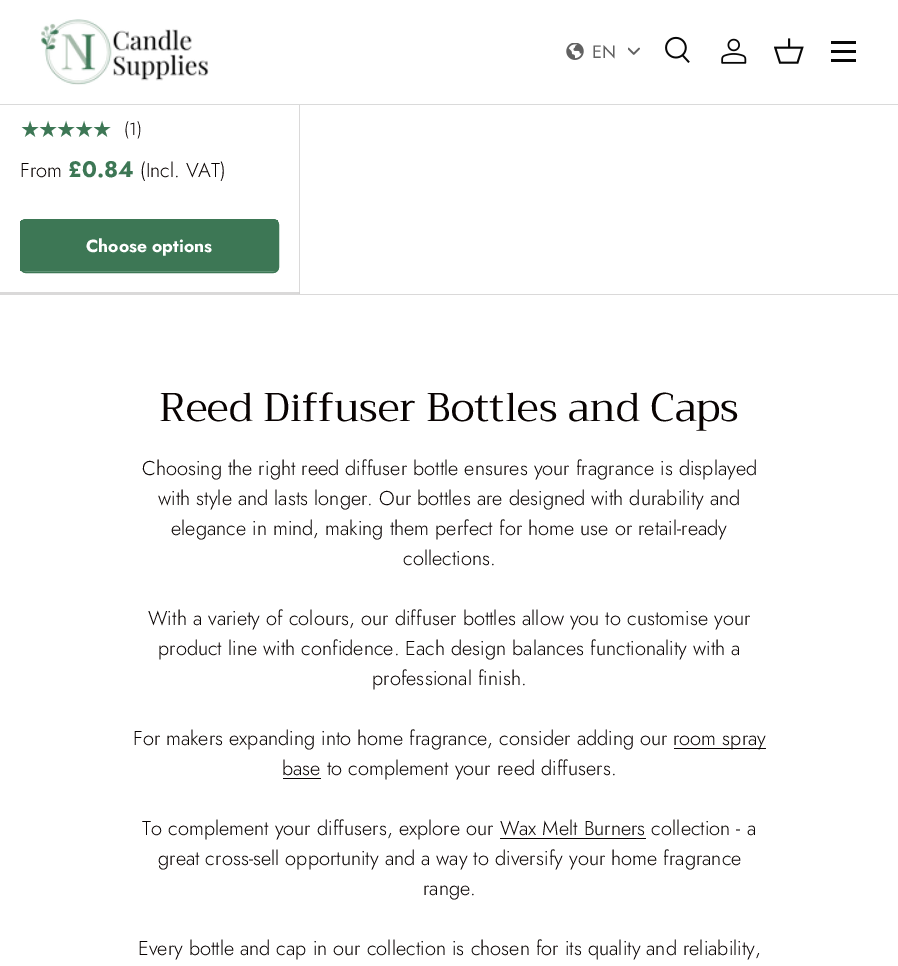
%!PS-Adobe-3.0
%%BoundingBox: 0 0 898 966
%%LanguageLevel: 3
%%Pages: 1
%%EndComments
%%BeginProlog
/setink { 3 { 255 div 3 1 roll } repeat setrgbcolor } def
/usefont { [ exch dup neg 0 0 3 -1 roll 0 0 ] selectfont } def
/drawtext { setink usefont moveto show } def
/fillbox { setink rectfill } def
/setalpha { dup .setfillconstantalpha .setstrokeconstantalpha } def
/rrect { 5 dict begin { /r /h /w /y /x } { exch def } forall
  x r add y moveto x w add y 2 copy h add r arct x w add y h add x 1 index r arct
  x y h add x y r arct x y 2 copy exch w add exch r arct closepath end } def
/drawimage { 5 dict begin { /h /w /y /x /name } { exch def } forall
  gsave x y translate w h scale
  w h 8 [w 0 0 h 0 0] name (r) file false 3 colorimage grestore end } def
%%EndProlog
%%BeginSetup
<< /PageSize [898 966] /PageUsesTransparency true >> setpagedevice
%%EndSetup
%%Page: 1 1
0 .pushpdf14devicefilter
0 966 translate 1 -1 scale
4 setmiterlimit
0 0 898 966 255 255 255 fillbox
218 217 217 setink
300 -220 moveto 300 294 lineto 299 292 lineto 299 -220 lineto closepath fill
299 0 1 104 255 255 255 fillbox
0 104 898 1 218 218 218 fillbox
(assets/img1.rgb) 41 19 168 66 drawimage
(assets/img2.rgb) 566 43 18 17 drawimage
(EN) 592 58 /Jost-Regular 18 97 97 97 drawtext
(assets/img3.rgb) 628 47 12 8 drawimage
(assets/img4.rgb) 665 36 25 27 drawimage
(assets/img5.rgb) 721 38 26 26 drawimage
(assets/img6.rgb) 774 38 30 26 drawimage
831 41 25 3 7 7 7 fillbox
831 59 25 3 7 7 7 fillbox
831 50 25 3 7 7 7 fillbox
0 294 898 1 218 217 217 fillbox
0.15 setalpha
9 3 2 setink
300 294 moveto 0 294 lineto 0 292 lineto 299 292 lineto closepath fill
/DejaVuSans-Regular 22.5 usefont
1 setalpha
61 119 85 setink
20 137 moveto -2.25 0 (★★★★★) ashow
(\(1\)) 124 135 /Jost-Light 17.5 9 3 2 drawtext
(From) 20 177 /Jost-Light 20 9 3 2 drawtext
(£0.84) 68 177 /Jost-Bold 22.5 61 119 85 drawtext
(\(Incl. VAT\)) 140 177 /Jost-Light 20 9 3 2 drawtext
96 148 118 setink
20 219 259 54 6 rrect fill
gsave
20 219 259 54 6 rrect clip newpath
gsave 20 220 moveto 278 220 lineto 278 271 lineto 20 271 lineto closepath clip newpath
<< /ShadingType 2 /ColorSpace /DeviceRGB /Coords [-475 154 261 337] /Extend [true true] /Function << /FunctionType 3 /Domain [0 1] /Functions [<< /FunctionType 2 /Domain [0 1] /C0 [0.376 0.58 0.463] /C1 [0.376 0.58 0.463] /N 1 >> << /FunctionType 2 /Domain [0 1] /C0 [0.239 0.467 0.333] /C1 [0.239 0.467 0.333] /N 1 >>] /Bounds [0.6] /Encode [0 1 0 1] >> >> shfill grestore
grestore
61 119 85 setink
20.5 219.5 258 53 5.5 rrect stroke
(Choose options) 86 252 /Jost-Bold 17.5 255 255 255 drawtext
(Reed Diffuser Bottles and Caps) 159 421 /Trirong-Regular 40.1 9 3 2 drawtext
(Choosing the right reed diffuser bottle ensures your fragrance is displayed) 142 475 /Jost-Light 20 9 3 2 drawtext
(with style and lasts longer. Our bottles are designed with durability and) 158 505 /Jost-Light 20 9 3 2 drawtext
(elegance in mind, making them perfect for home use or retail-ready) 171 535 /Jost-Light 20 9 3 2 drawtext
(collections.) 403 565 /Jost-Light 20 9 3 2 drawtext
(With a variety of colours, our diffuser bottles allow you to customise your) 148 625 /Jost-Light 20 9 3 2 drawtext
(product line with confidence. Each design balances functionality with a) 158 655 /Jost-Light 20 9 3 2 drawtext
(professional finish.) 372 685 /Jost-Light 20 9 3 2 drawtext
(For makers expanding into home fragrance, consider adding our) 133 745 /Jost-Light 20 9 3 2 drawtext
674 748 92 1 9 3 2 fillbox
(room spray) 673 745 /Jost-Light 20 9 3 2 drawtext
283 778 38 1 9 3 2 fillbox
(base to complement your reed diffusers.) 282 775 /Jost-Light 20 9 3 2 drawtext
(To complement your diffusers, explore our Wax Melt Burners collection - a) 142 835 /Jost-Light 20 9 3 2 drawtext
500 838 146 1 9 3 2 fillbox
(great cross-sell opportunity and a way to diversify your home fragrance) 158 865 /Jost-Light 20 9 3 2 drawtext
(range.) 423 895 /Jost-Light 20 9 3 2 drawtext
(Every bottle and cap in our collection is chosen for its quality and reliability,) 138 955 /Jost-Light 20 9 3 2 drawtext
.poppdf14devicefilter showpage
%%EOF
